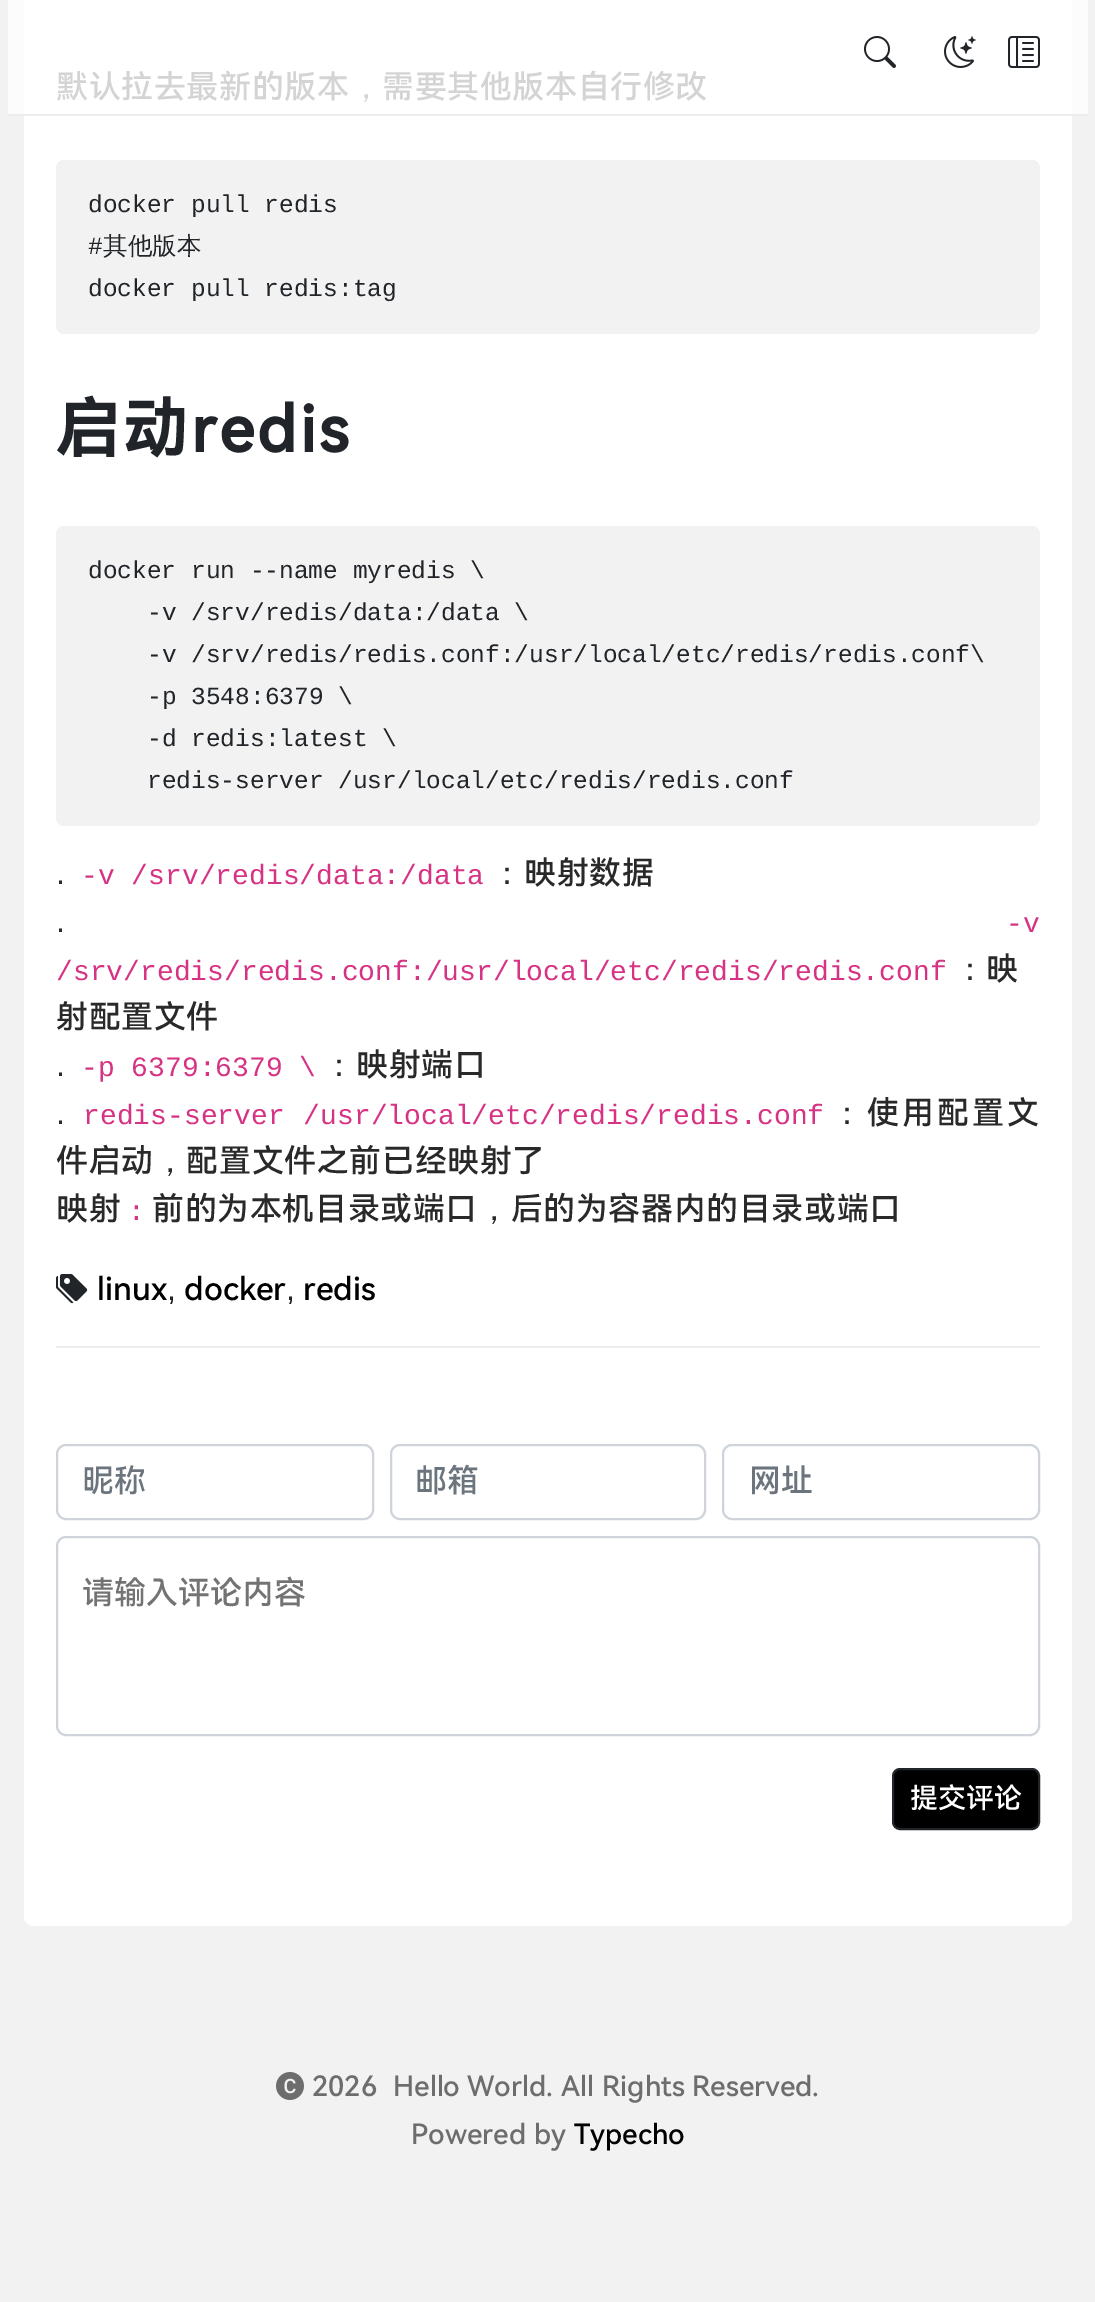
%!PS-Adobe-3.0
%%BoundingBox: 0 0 1095 2302
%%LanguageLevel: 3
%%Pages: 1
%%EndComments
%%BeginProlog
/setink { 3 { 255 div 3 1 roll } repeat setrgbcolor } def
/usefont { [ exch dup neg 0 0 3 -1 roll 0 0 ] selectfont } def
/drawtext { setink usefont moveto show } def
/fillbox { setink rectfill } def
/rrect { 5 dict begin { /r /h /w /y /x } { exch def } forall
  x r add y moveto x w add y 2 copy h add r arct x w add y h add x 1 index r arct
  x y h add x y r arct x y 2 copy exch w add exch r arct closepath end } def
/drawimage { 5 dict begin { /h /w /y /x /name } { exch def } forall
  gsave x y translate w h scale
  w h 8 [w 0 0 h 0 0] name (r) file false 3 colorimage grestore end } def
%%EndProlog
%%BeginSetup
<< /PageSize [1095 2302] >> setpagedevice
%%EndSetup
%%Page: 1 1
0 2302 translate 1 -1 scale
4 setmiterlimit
0 0 1095 2302 242 242 242 fillbox
8 0 1080 114 252 252 252 fillbox
255 255 255 setink
24 -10 1048 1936 10 rrect fill
8 114 1080 2 237 237 237 fillbox
(assets/img1.rgb) 864 36 32 32 drawimage
(assets/img2.rgb) 944 36 32 32 drawimage
(assets/img3.rgb) 1008 36 32 32 drawimage
56 1346 984 2 237 237 237 fillbox
/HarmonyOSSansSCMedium-Medium 32 usefont
212 212 212 setink
56 98 moveto 0.6 0 (默认拉去最新的版本 需要其他版本自行修改) ashow
/WenQuanYiZenHei-Medium 32 usefont
350 98 moveto 0.6 0 (，) ashow
242 242 242 setink
56 160 984 174 8 rrect fill
(docker pull redis) 88 212 /LiberationMono-Regular 24.5 33 37 41 drawtext
(#) 88 254 /LiberationMono-Regular 24.5 33 37 41 drawtext
(其他版本) 103 254 /WenQuanYiZenHei-Medium 24.5 33 37 41 drawtext
(docker pull redis:tag) 88 296 /LiberationMono-Regular 24.5 33 37 41 drawtext
/HarmonyOSSansSCMedium-Bold 64 usefont
56 452 moveto 3.25 0 (启动redis) ashow
242 242 242 setink
56 526 984 300 8 rrect fill
(docker run --name myredis \\) 88 578 /LiberationMono-Regular 24.5 33 37 41 drawtext
(-v /srv/redis/data:/data \\) 147 620 /LiberationMono-Regular 24.5 33 37 41 drawtext
(-v /srv/redis/redis.conf:/usr/local/etc/redis/redis.conf\\) 147 662 /LiberationMono-Regular 24.5 33 37 41 drawtext
(-p 3548:6379 \\) 147 704 /LiberationMono-Regular 24.5 33 37 41 drawtext
(-d redis:latest \\) 147 746 /LiberationMono-Regular 24.5 33 37 41 drawtext
(redis-server /usr/local/etc/redis/redis.conf) 147 788 /LiberationMono-Regular 24.5 33 37 41 drawtext
/LiberationSans-Regular 32 usefont
41 41 41 setink
56 884 moveto 0.6 0 (.) ashow
(-v /srv/redis/data:/data) 81 884 /LiberationMono-Regular 28 214 51 132 drawtext
/WenQuanYiZenHei-Medium 32 usefont
41 41 41 setink
491 884 moveto 0.6 0 (：) ashow
/HarmonyOSSansSCMedium-Medium 32 usefont
524 884 moveto 0.6 0 (映射数据) ashow
/LiberationSans-Regular 32 usefont
56 932 moveto 0.6 0 (.) ashow
(-v) 1006 932 /LiberationMono-Regular 28 214 51 132 drawtext
(/srv/redis/redis.conf:/usr/local/etc/redis/redis.conf) 56 980 /LiberationMono-Regular 28 214 51 132 drawtext
/WenQuanYiZenHei-Medium 32 usefont
41 41 41 setink
954 980 moveto 0.6 0 (：) ashow
/HarmonyOSSansSCMedium-Medium 32 usefont
986 980 moveto 0.6 0 (映) ashow
56 1028 moveto 0.6 0 (射配置文件) ashow
/LiberationSans-Regular 32 usefont
56 1076 moveto 0.6 0 (.) ashow
(-p 6379:6379 \\) 81 1076 /LiberationMono-Regular 28 214 51 132 drawtext
/WenQuanYiZenHei-Medium 32 usefont
41 41 41 setink
323 1076 moveto 0.6 0 (：) ashow
/HarmonyOSSansSCMedium-Medium 32 usefont
356 1076 moveto 0.6 0 (映射端口) ashow
/LiberationSans-Regular 32 usefont
56 1124 moveto 0.6 0 (.) ashow
/LiberationMono-Regular 28 usefont
214 51 132 setink
83 1124 moveto 2 0 32 (redis-server /usr/local/etc/redis/redis.conf) widthshow
/WenQuanYiZenHei-Medium 32 usefont
41 41 41 setink
831 1124 moveto 3 0 (：) ashow
/HarmonyOSSansSCMedium-Medium 32 usefont
867 1124 moveto 3 0 (使用配置文) ashow
56 1172 moveto 0.6 0 (件启动 配置文件之前已经映射了) ashow
/WenQuanYiZenHei-Medium 32 usefont
154 1172 moveto 0.6 0 (，) ashow
/HarmonyOSSansSCMedium-Medium 32 usefont
56 1220 moveto 0.6 0 (映射) ashow
(:) 128 1220 /LiberationMono-Regular 28 214 51 132 drawtext
/HarmonyOSSansSCMedium-Medium 32 usefont
41 41 41 setink
152 1220 moveto 0.6 0 (前的为本机目录或端口 后的为容器内的目录或端口) ashow
/WenQuanYiZenHei-Medium 32 usefont
478 1220 moveto 0.6 0 (，) ashow
(assets/img4.rgb) 56 1274 32 30 drawimage
(linux) 97 1300 /HarmonyOSSansSCMedium-Medium 32 0 0 0 drawtext
(,) 167 1300 /LiberationSans-Regular 32 33 37 41 drawtext
(docker) 184 1300 /HarmonyOSSansSCMedium-Medium 32 0 0 0 drawtext
(,) 286 1300 /LiberationSans-Regular 32 33 37 41 drawtext
(redis) 303 1300 /HarmonyOSSansSCMedium-Medium 32 0 0 0 drawtext
206 212 218 setink
2 setlinewidth
57 1445 316 74 9 rrect stroke
(昵称) 82 1492 /HarmonyOSSansSCMedium-Medium 32 108 117 125 drawtext
206 212 218 setink
391 1445 314 74 9 rrect stroke
(邮箱) 415 1492 /HarmonyOSSansSCMedium-Medium 32 108 117 125 drawtext
206 212 218 setink
723 1445 316 74 9 rrect stroke
(网址) 749 1492 /HarmonyOSSansSCMedium-Medium 32 108 117 125 drawtext
206 212 218 setink
57 1537 982 198 9 rrect stroke
(请输入评论内容) 82 1604 /HarmonyOSSansSCMedium-Medium 32 115 115 115 drawtext
0 0 0 setink
893 1769 146 60 7 rrect gsave fill grestore
33 37 41 setink
stroke
(提交评论) 910 1808 /HarmonyOSSansSCMedium-Medium 28 255 255 255 drawtext
(assets/img5.rgb) 276 2072 28 28 drawimage
(2026) 312 2096 /HarmonyOSSansSCMedium-Medium 28 109 109 109 drawtext
(Hello) 393 2096 /HarmonyOSSansSCMedium-Medium 28 109 109 109 drawtext
(World.) 467 2096 /HarmonyOSSansSCMedium-Medium 28 109 109 109 drawtext
(All) 561 2096 /HarmonyOSSansSCMedium-Medium 28 109 109 109 drawtext
(Rights) 602 2096 /HarmonyOSSansSCMedium-Medium 28 109 109 109 drawtext
(Reserved.) 692 2096 /HarmonyOSSansSCMedium-Medium 28 109 109 109 drawtext
(Powered) 411 2144 /HarmonyOSSansSCMedium-Medium 28 109 109 109 drawtext
(by) 534 2144 /HarmonyOSSansSCMedium-Medium 28 109 109 109 drawtext
(Typecho) 574 2144 /HarmonyOSSansSCMedium-Medium 28 0 0 0 drawtext
showpage
%%EOF
